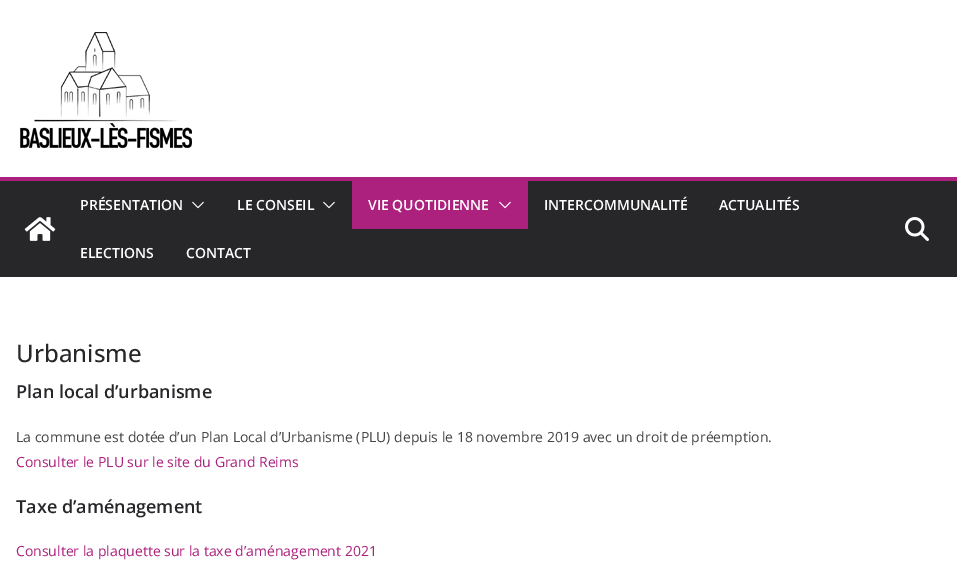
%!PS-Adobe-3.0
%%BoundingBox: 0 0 957 561
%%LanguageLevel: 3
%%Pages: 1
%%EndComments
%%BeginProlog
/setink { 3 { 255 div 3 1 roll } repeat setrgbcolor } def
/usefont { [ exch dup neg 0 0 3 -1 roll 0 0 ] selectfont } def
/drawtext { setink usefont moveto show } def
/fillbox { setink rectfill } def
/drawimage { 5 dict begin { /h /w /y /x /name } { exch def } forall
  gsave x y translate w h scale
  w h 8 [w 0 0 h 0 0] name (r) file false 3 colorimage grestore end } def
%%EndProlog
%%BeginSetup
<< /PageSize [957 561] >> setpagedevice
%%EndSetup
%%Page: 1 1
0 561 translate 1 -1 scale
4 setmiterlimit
0 0 957 561 255 255 255 fillbox
(assets/img1.rgb) 20 32 172 116 drawimage
0 181 957 96 39 39 42 fillbox
0 177 957 4 172 32 126 fillbox
(assets/img2.rgb) 24 217 32 24 drawimage
(PRÉSENTATION) 80 210 /OpenSans-SemiBold 14 255 255 255 drawtext
(assets/img3.rgb) 192 201 12 8 drawimage
(LE CONSEIL) 237 210 /OpenSans-SemiBold 14 255 255 255 drawtext
(assets/img3.rgb) 323 201 12 8 drawimage
352 181 176 48 172 32 126 fillbox
(VIE QUOTIDIENNE) 368 210 /OpenSans-SemiBold 14 255 255 255 drawtext
(assets/img4.rgb) 499 201 12 8 drawimage
(INTERCOMMUNALITÉ) 544 210 /OpenSans-SemiBold 14 255 255 255 drawtext
(ACTUALITÉS) 719 210 /OpenSans-SemiBold 14 255 255 255 drawtext
(ELECTIONS) 80 258 /OpenSans-SemiBold 14 255 255 255 drawtext
(CONTACT) 186 258 /OpenSans-SemiBold 14 255 255 255 drawtext
(assets/img5.rgb) 905 217 24 24 drawimage
(Urbanisme) 16 362 /OpenSans-Medium 24 39 39 42 drawtext
(Plan local d’urbanisme) 16 398 /OpenSans-SemiBold 18 39 39 42 drawtext
(La commune est dotée d’un Plan Local d’Urbanisme \(PLU\) depuis le 18 novembre 2019 avec un droit de préemption.) 16 442 /OpenSans-Regular 14 68 68 68 drawtext
(Consulter le PLU sur le site du Grand Reims) 16 467 /OpenSans-Regular 14 172 32 126 drawtext
(Taxe d’aménagement) 16 513 /OpenSans-SemiBold 18 39 39 42 drawtext
(Consulter la plaquette sur la taxe d’aménagement 2021) 16 556 /OpenSans-Regular 14 172 32 126 drawtext
showpage
%%EOF
